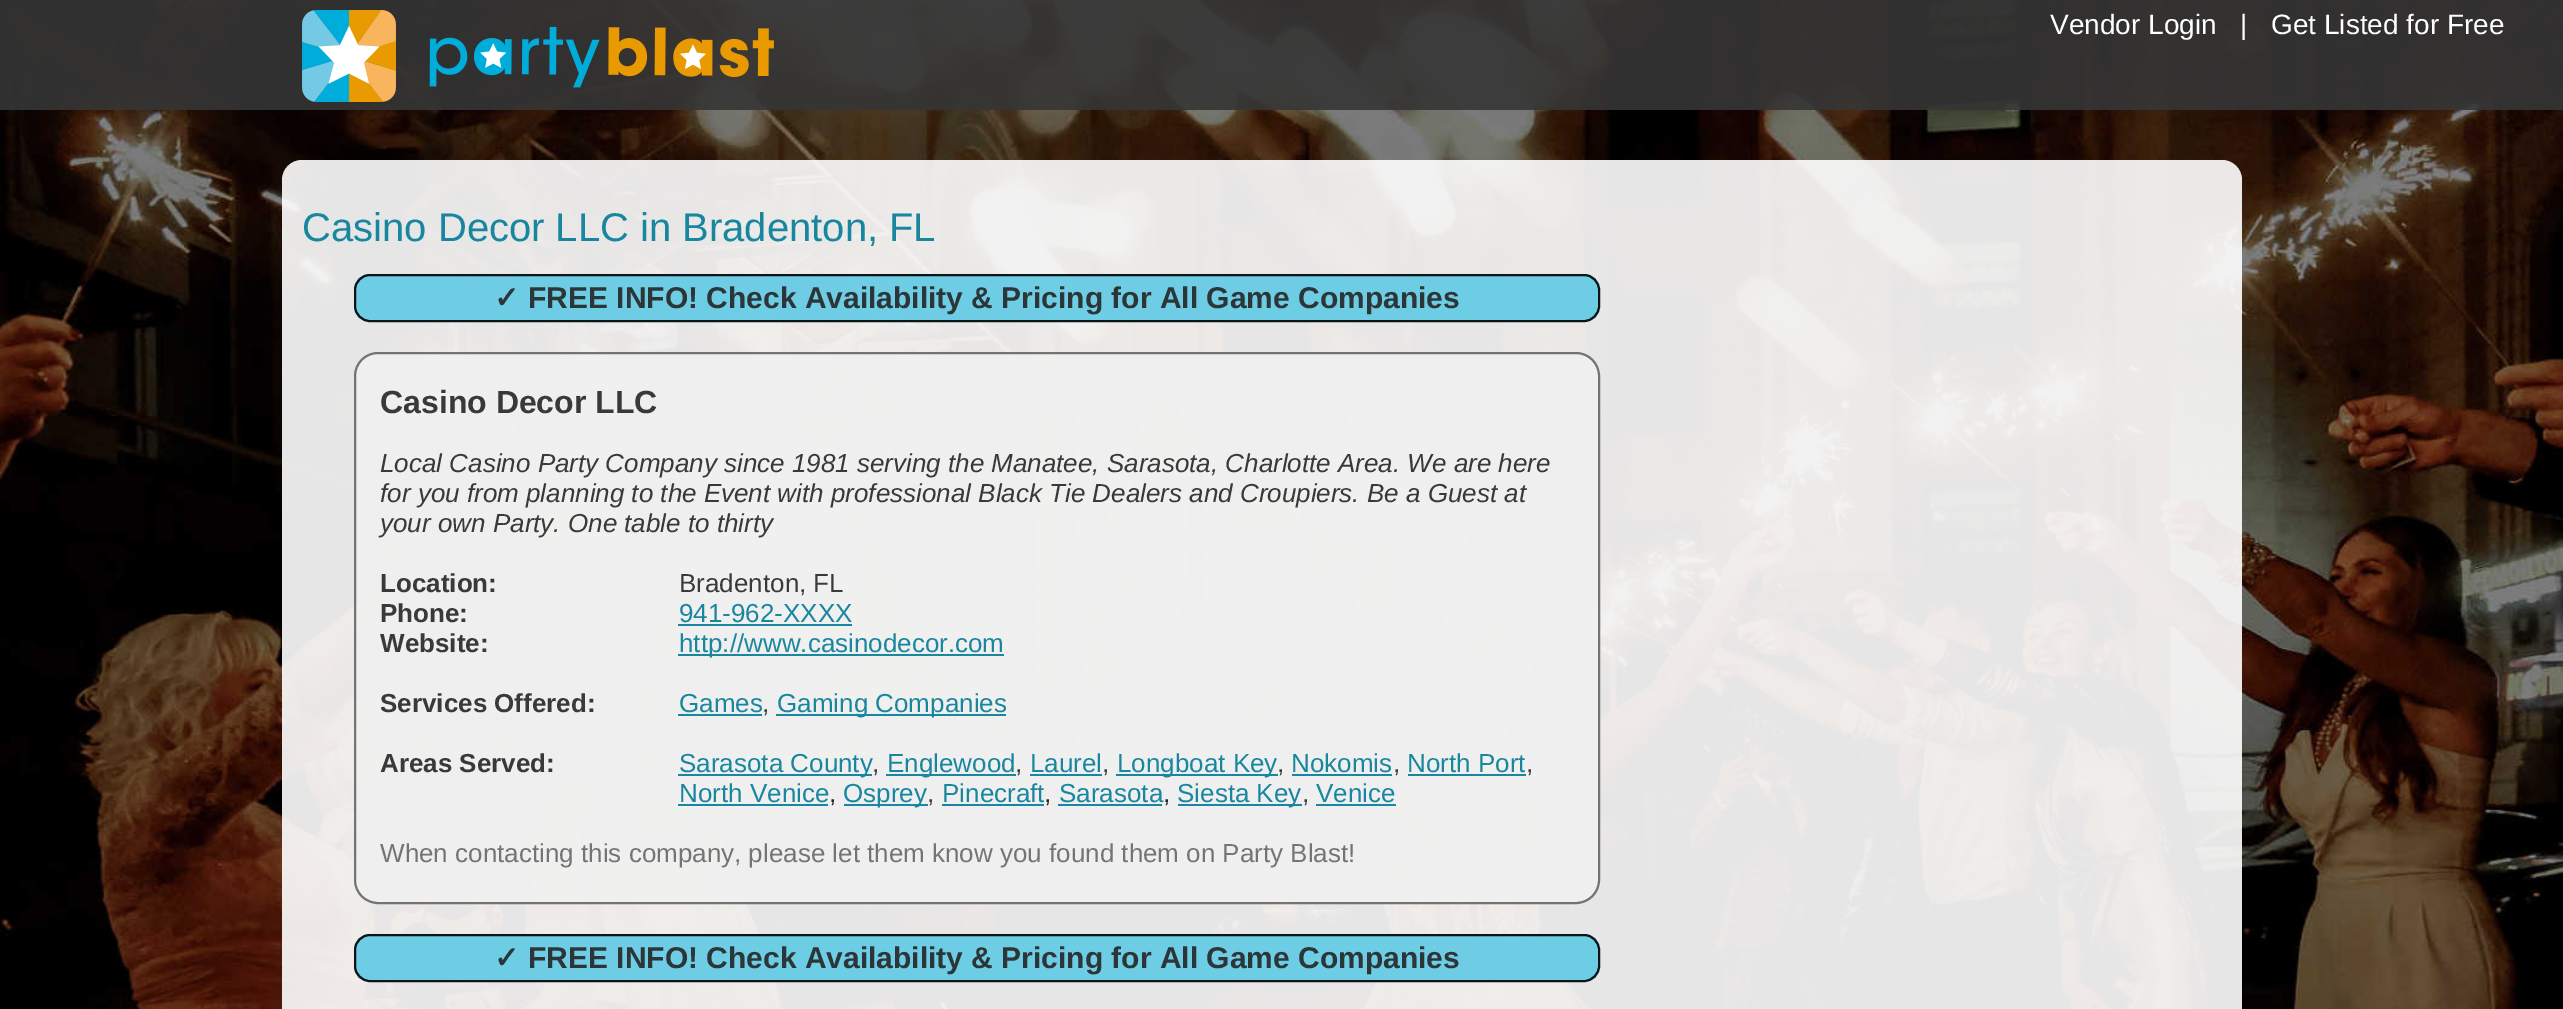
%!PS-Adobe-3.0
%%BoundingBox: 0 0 2563 1009
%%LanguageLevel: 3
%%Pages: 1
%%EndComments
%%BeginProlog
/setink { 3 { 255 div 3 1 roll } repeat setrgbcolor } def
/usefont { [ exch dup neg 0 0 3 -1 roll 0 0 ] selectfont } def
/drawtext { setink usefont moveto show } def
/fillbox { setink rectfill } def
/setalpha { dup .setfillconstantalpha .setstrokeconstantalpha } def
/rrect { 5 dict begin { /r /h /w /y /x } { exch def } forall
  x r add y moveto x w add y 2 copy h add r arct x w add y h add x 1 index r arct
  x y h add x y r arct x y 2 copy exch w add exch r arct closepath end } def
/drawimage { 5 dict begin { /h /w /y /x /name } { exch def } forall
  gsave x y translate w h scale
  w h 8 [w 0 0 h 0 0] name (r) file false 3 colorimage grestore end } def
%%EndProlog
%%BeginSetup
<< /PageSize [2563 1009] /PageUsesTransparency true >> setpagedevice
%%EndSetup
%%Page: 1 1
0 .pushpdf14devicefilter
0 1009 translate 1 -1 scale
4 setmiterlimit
0 0 2563 1009 255 255 255 fillbox
(assets/img1.rgb) 0 0 2563 1009 drawimage
0.9 setalpha
0 0 2563 110 53 53 53 fillbox
1 setalpha
(assets/img2.rgb) 302 10 472 92 drawimage
(Vendor Login) 2050 34 /LiberationSans-Regular 28 255 255 255 drawtext
(|) 2240 34 /LiberationSans-Regular 28 255 255 255 drawtext
(Get Listed for Free) 2271 34 /LiberationSans-Regular 28 255 255 255 drawtext
0.9 setalpha
282 160 1960 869 20 rrect fill
1 setalpha
(Casino Decor LLC in Bradenton, FL) 302 241 /LiberationSans-Regular 40 24 134 159 drawtext
0.9 setalpha
96 202 228 setink
354 274 1246 48 16 rrect fill
0 0 0 setink
2 setlinewidth
355 275 1244 46 15 rrect stroke
1 setalpha
(✓) 494 308 /DejaVuSans-Bold 30 44 54 56 drawtext
(FREE INFO! Check Availability & Pricing for All Game Companies) 528 308 /LiberationSans-Bold 30 44 54 56 drawtext
0.9 setalpha
240 240 240 setink
354 352 1246 552 24 rrect fill
102 102 102 setink
355 353 1244 550 23 rrect stroke
1 setalpha
(Casino Decor LLC) 380 413 /LiberationSans-Bold 32 57 57 57 drawtext
(Local Casino Party Company since 1981 serving the Manatee, Sarasota, Charlotte Area. We are here) 380 472 /LiberationSans-Italic 26 57 57 57 drawtext
(for you from planning to the Event with professional Black Tie Dealers and Croupiers. Be a Guest at) 380 502 /LiberationSans-Italic 26 57 57 57 drawtext
(your own Party. One table to thirty) 380 532 /LiberationSans-Italic 26 57 57 57 drawtext
(Location:) 380 592 /LiberationSans-Bold 26 57 57 57 drawtext
(Bradenton, FL) 679 592 /LiberationSans-Regular 26 57 57 57 drawtext
(Phone:) 380 622 /LiberationSans-Bold 26 57 57 57 drawtext
(941-962-XXXX) 679 622 /LiberationSans-Regular 26 24 134 159 drawtext
678 624 174 2 25 135 160 fillbox
(Website:) 380 652 /LiberationSans-Bold 26 57 57 57 drawtext
678 654 326 2 25 135 160 fillbox
(http://www.casinodecor.com) 679 652 /LiberationSans-Regular 26 24 134 159 drawtext
(Services Offered:) 380 712 /LiberationSans-Bold 26 57 57 57 drawtext
(Games) 679 712 /LiberationSans-Regular 26 24 134 159 drawtext
678 714 84 2 25 135 160 fillbox
(,) 762 712 /LiberationSans-Regular 26 57 57 57 drawtext
776 714 230 2 25 135 160 fillbox
(Gaming Companies) 777 712 /LiberationSans-Regular 26 24 134 159 drawtext
(Areas Served:) 380 772 /LiberationSans-Bold 26 57 57 57 drawtext
678 774 194 2 25 135 160 fillbox
(Sarasota County) 679 772 /LiberationSans-Regular 26 24 134 159 drawtext
(,) 872 772 /LiberationSans-Regular 26 57 57 57 drawtext
886 774 130 2 25 135 160 fillbox
(Englewood) 887 772 /LiberationSans-Regular 26 24 134 159 drawtext
(,) 1015 772 /LiberationSans-Regular 26 57 57 57 drawtext
(Laurel) 1030 772 /LiberationSans-Regular 26 24 134 159 drawtext
1030 774 72 2 25 135 160 fillbox
(,) 1102 772 /LiberationSans-Regular 26 57 57 57 drawtext
1116 774 162 2 25 135 160 fillbox
(Longboat Key) 1117 772 /LiberationSans-Regular 26 24 134 159 drawtext
(,) 1277 772 /LiberationSans-Regular 26 57 57 57 drawtext
(Nokomis) 1291 772 /LiberationSans-Regular 26 24 134 159 drawtext
1292 774 100 2 25 135 160 fillbox
(,) 1393 772 /LiberationSans-Regular 26 57 57 57 drawtext
(North Port) 1407 772 /LiberationSans-Regular 26 24 134 159 drawtext
1408 774 118 2 25 135 160 fillbox
(,) 1526 772 /LiberationSans-Regular 26 57 57 57 drawtext
(North Venice) 679 802 /LiberationSans-Regular 26 24 134 159 drawtext
678 804 150 2 25 135 160 fillbox
(,) 829 802 /LiberationSans-Regular 26 33 33 33 drawtext
844 804 84 2 25 135 160 fillbox
(Osprey) 843 802 /LiberationSans-Regular 26 24 134 159 drawtext
(,) 927 802 /LiberationSans-Regular 26 57 57 57 drawtext
(Pinecraft) 942 802 /LiberationSans-Regular 26 24 134 159 drawtext
942 804 102 2 25 135 160 fillbox
(,) 1044 802 /LiberationSans-Regular 26 33 33 33 drawtext
(Sarasota) 1059 802 /LiberationSans-Regular 26 24 134 159 drawtext
1058 804 104 2 25 135 160 fillbox
(,) 1163 802 /LiberationSans-Regular 26 33 33 33 drawtext
1178 804 124 2 25 135 160 fillbox
(Siesta Key) 1177 802 /LiberationSans-Regular 26 24 134 159 drawtext
(,) 1302 802 /LiberationSans-Regular 26 57 57 57 drawtext
(Venice) 1316 802 /LiberationSans-Regular 26 24 134 159 drawtext
1316 804 80 2 25 135 160 fillbox
(When contacting this company, please let them know you found them on Party Blast!) 380 862 /LiberationSans-Regular 26 116 116 116 drawtext
0.9 setalpha
96 202 228 setink
354 934 1246 48 16 rrect fill
0 0 0 setink
355 935 1244 46 15 rrect stroke
1 setalpha
(✓) 494 968 /DejaVuSans-Bold 30 44 54 56 drawtext
(FREE INFO! Check Availability & Pricing for All Game Companies) 528 968 /LiberationSans-Bold 30 44 54 56 drawtext
.poppdf14devicefilter showpage
%%EOF
